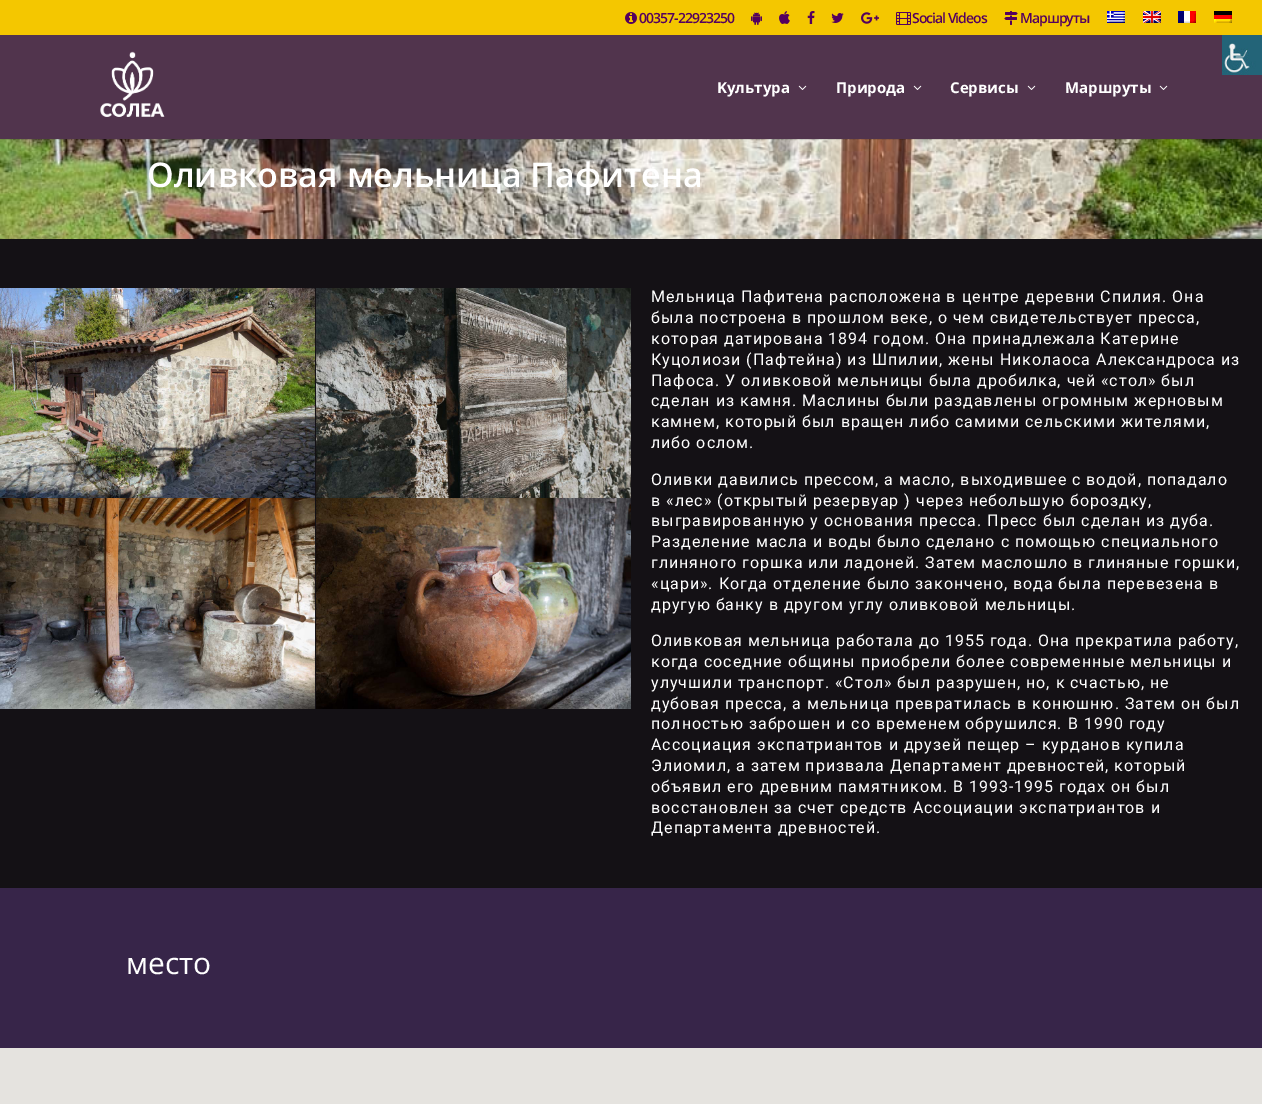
%!PS-Adobe-3.0
%%BoundingBox: 0 0 1262 1104
%%LanguageLevel: 3
%%Pages: 1
%%EndComments
%%BeginProlog
/setink { 3 { 255 div 3 1 roll } repeat setrgbcolor } def
/usefont { [ exch dup neg 0 0 3 -1 roll 0 0 ] selectfont } def
/drawtext { setink usefont moveto show } def
/fillbox { setink rectfill } def
/setalpha { dup .setfillconstantalpha .setstrokeconstantalpha } def
/drawimage { 5 dict begin { /h /w /y /x /name } { exch def } forall
  gsave x y translate w h scale
  w h 8 [w 0 0 h 0 0] name (r) file false 3 colorimage grestore end } def
%%EndProlog
%%BeginSetup
<< /PageSize [1262 1104] /PageUsesTransparency true >> setpagedevice
%%EndSetup
%%Page: 1 1
0 .pushpdf14devicefilter
0 1104 translate 1 -1 scale
4 setmiterlimit
0 0 1262 1104 255 255 255 fillbox
0 0 1262 35 244 199 0 fillbox
(assets/img1.rgb) 625 12 12 12 drawimage
/OpenSans-SemiBold 14 usefont
84 0 94 setink
639 23 moveto -1 0 (00357-22923250) ashow
(assets/img2.rgb) 751 12 11 13 drawimage
(assets/img3.rgb) 779 11 11 13 drawimage
(assets/img4.rgb) 807 11 8 13 drawimage
(assets/img5.rgb) 831 13 13 10 drawimage
(assets/img6.rgb) 861 12 18 12 drawimage
(assets/img7.rgb) 896 12 15 13 drawimage
912 23 moveto -1 0 (Social Videos) ashow
(assets/img8.rgb) 1004 11 14 14 drawimage
1020 23 moveto -1 0 (Маршруты) ashow
(assets/img9.rgb) 1107 11 18 12 drawimage
(assets/img10.rgb) 1143 11 18 12 drawimage
(assets/img11.rgb) 1178 11 18 12 drawimage
(assets/img12.rgb) 1214 11 18 12 drawimage
(assets/img15.rgb) 0 139 1262 100 drawimage
0.1 setalpha
0 139 1262 1 0 0 0 fillbox
1 setalpha
0 35 1262 104 81 52 77 fillbox
(assets/img13.rgb) 100 51 65 66 drawimage
(Kультура) 717 93 /OpenSans-Bold 15 255 255 255 drawtext
(assets/img14.rgb) 798 85 9 5 drawimage
(Природа) 836 93 /OpenSans-Bold 15 255 255 255 drawtext
(assets/img14.rgb) 913 85 9 5 drawimage
(Сервисы) 950 93 /OpenSans-Bold 15 255 255 255 drawtext
(assets/img14.rgb) 1027 85 9 5 drawimage
(Маршруты) 1065 93 /OpenSans-Bold 15 255 255 255 drawtext
(assets/img14.rgb) 1159 85 9 5 drawimage
(Оливковая мельница Пафитена) 147 187 /OpenSans-SemiBold 34 255 255 255 drawtext
0 239 1262 649 20 17 21 fillbox
(assets/img16.rgb) 0 288 315 210 drawimage
(assets/img17.rgb) 0 498 315 211 drawimage
(assets/img18.rgb) 316 288 315 210 drawimage
(assets/img19.rgb) 316 498 315 211 drawimage
/Roboto-Regular 16 usefont
255 255 255 setink
651 302 moveto 1 0 (Мельница Пафитена расположенa в центре деревни Спилия. Онa) ashow
651 323 moveto 1 0 (былa построенa в прошлом веке, о чем свидетельствует пресса,) ashow
651 344 moveto 1 0 (которая датирована 1894 годом. Она принадлежала Катерине) ashow
651 365 moveto 1 0 (Куцолиози \(Пафтейна\) из Шпилии, жены Николаоса Александроса из) ashow
651 386 moveto 1 0 (Пафоса. У оливковой мельницы была дробилка, чей «стол» был) ashow
651 406 moveto 1 0 (сделан из камня. Маслины были раздавлены огромным жерновым) ashow
651 427 moveto 1 0 (камнем, который был вращен либо самими сельскими жителями,) ashow
651 448 moveto 1 0 (либо ослом.) ashow
651 485 moveto 1 0 (Оливки давились прессом, а масло, выходившее с водой, попадало) ashow
651 506 moveto 1 0 (в «лес» \(открытый резервуар \) через небольшую бороздку,) ashow
651 526 moveto 1 0 (выгравированную у основания пресса. Пресс был сделан из дуба.) ashow
651 547 moveto 1 0 (Разделение масла и воды было сделано с помощью специального) ashow
651 568 moveto 1 0 (глиняного горшка или ладоней. Затем маслошло в глиняные горшки,) ashow
651 589 moveto 1 0 («цари». Когда отделение было закончено, вода была перевезена в) ashow
651 610 moveto 1 0 (другую банку в другом углу оливковой мельницы.) ashow
651 646 moveto 1 0 (Оливковая мельница работала до 1955 года. Онa прекратилa работу,) ashow
651 667 moveto 1 0 (когда соседние общины приобрели более современные мельницы и) ashow
651 688 moveto 1 0 (улучшили транспорт. «Стол» был разрушен, но, к счастью, не) ashow
651 709 moveto 1 0 (дубовая пресса, а мельница превратилась в конюшню. Затем он был) ashow
651 729 moveto 1 0 (полностью заброшен и со временем обрушился. В 1990 году) ashow
651 750 moveto 1 0 (Ассоциация экспатриантов и друзей пещер – курданов купила) ashow
651 771 moveto 1 0 (Элиомил, а затем призвала Департамент древностей, который) ashow
651 792 moveto 1 0 (объявил его древним памятником. В 1993-1995 годах он был) ashow
651 813 moveto 1 0 (восстановлен за счет средств Ассоциации экспатриантов и) ashow
651 833 moveto 1 0 (Департамента древностей.) ashow
0 888 1262 160 55 37 73 fillbox
(место) 126 974 /OpenSans-Regular 30 255 255 255 drawtext
0 1048 1262 56 229 227 223 fillbox
(assets/img20.rgb) 1222 35 40 40 drawimage
.poppdf14devicefilter showpage
%%EOF
